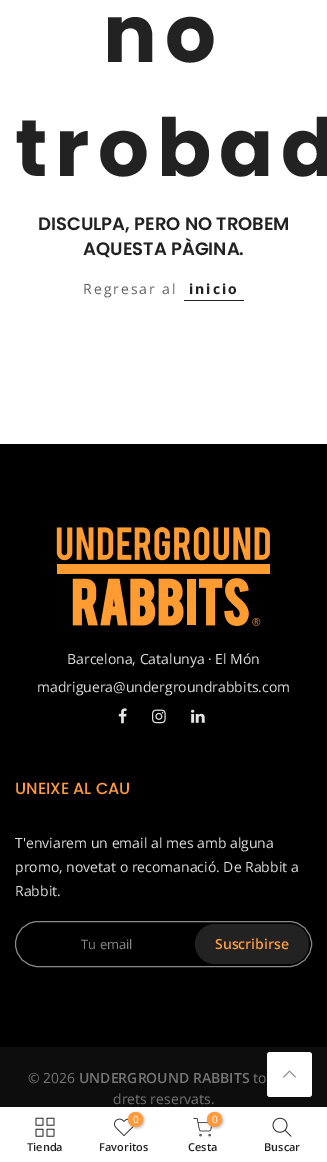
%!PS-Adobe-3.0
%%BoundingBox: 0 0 327 1162
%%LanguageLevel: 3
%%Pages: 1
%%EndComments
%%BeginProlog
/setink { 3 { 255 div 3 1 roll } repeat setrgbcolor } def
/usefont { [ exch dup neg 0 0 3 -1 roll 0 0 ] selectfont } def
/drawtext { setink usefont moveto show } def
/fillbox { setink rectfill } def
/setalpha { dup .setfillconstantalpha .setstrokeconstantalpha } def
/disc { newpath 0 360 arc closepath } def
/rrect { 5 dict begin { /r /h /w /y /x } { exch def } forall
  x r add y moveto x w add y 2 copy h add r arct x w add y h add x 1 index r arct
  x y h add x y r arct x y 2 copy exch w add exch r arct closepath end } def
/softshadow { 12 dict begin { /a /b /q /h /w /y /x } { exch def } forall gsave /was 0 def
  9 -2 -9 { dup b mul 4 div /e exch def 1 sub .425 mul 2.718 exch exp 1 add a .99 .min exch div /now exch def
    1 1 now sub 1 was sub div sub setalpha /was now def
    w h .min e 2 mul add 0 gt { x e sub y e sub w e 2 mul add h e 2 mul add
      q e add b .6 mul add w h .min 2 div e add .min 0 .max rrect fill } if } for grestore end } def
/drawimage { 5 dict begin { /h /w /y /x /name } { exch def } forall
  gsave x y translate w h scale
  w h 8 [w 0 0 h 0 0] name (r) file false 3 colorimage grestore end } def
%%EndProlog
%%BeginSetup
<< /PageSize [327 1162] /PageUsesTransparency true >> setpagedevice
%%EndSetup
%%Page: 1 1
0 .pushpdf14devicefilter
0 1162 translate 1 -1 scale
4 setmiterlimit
0 0 327 1162 255 255 255 fillbox
/Poppins-Bold 80 usefont
34 34 34 setink
103 62 moveto 8 0 (no) ashow
15 176 moveto 8 0 (trobad) ashow
(DISCULPA, PERO NO TROBEM) 38 230 /Poppins-SemiBold 18 34 34 34 drawtext
(AQUESTA PÀGINA.) 83 255 /Poppins-SemiBold 18 34 34 34 drawtext
/OpenSans-Regular 14 usefont
96 96 96 setink
83 294 moveto 2 0 (Regresar al) ashow
/OpenSans-Bold 14 usefont
34 34 34 setink
189 294 moveto 2 0 (inicio) ashow
184 300 60 1 34 34 34 fillbox
0 444 327 603 0 0 0 fillbox
(assets/img1.rgb) 56 527 214 99 drawimage
(Barcelona, Catalunya · El Món) 67 664 /OpenSans-Regular 14 223 223 223 drawtext
(madriguera@undergroundrabbits.com) 37 692 /OpenSans-Regular 14 223 223 223 drawtext
(assets/img2.rgb) 118 708 9 16 drawimage
(assets/img3.rgb) 152 709 14 15 drawimage
(assets/img4.rgb) 191 709 14 14 drawimage
(UNEIXE AL CAU) 15 794 /Poppins-Medium 16 255 155 61 drawtext
(T'enviarem un email al mes amb alguna) 15 848 /OpenSans-Regular 14 223 223 223 drawtext
(promo, novetat o recomanació. De Rabbit a) 15 872 /OpenSans-Regular 14 223 223 223 drawtext
(Rabbit.) 15 896 /OpenSans-Regular 14 223 223 223 drawtext
136 136 136 setink
15.5 921.5 296 45 22.5 rrect stroke
(Tu email) 81 949 /OpenSans-Regular 13 135 135 135 drawtext
34 34 34 setink
195 924 114 40 20 rrect fill
(Suscribirse) 215 949 /OpenSans-SemiBold 14 255 155 61 drawtext
0 1047 327 60 13 13 13 fillbox
(© 2026) 28 1083 /OpenSans-Regular 14 116 116 116 drawtext
(UNDERGROUND RABBITS) 79 1083 /OpenSans-SemiBold 14 116 116 116 drawtext
(to) 253 1083 /OpenSans-Regular 14 116 116 116 drawtext
(drets reservats.) 113 1104 /OpenSans-Regular 14 116 116 116 drawtext
255 255 255 setink
267 1052 45 45 3 rrect fill
(assets/img5.rgb) 283 1070 13 8 drawimage
0 0 0 setink
0 1107 327 55 0 4.5 0.12 softshadow
0 1107 327 55 255 255 255 fillbox
(assets/img6.rgb) 35 1117 20 20 drawimage
(Tienda) 27 1151 /OpenSans-SemiBold 11 34 34 34 drawtext
(assets/img7.rgb) 114 1118 20 18 drawimage
0 0 0 setink
129 1113 15 15 7.5 1.5 0.3 softshadow
255 155 61 setink
135.5 1119.5 7.5 disc fill
(0) 133 1123 /OpenSans-Regular 10 255 255 255 drawtext
(Favoritos) 99 1151 /OpenSans-SemiBold 11 34 34 34 drawtext
(assets/img8.rgb) 193 1118 19 19 drawimage
0 0 0 setink
208 1113 15 15 7.5 1.5 0.3 softshadow
255 155 61 setink
214.5 1119.5 7.5 disc fill
(0) 212 1123 /OpenSans-Regular 10 255 255 255 drawtext
(Cesta) 188 1151 /OpenSans-SemiBold 11 34 34 34 drawtext
(assets/img9.rgb) 272 1117 20 20 drawimage
(Buscar) 264 1151 /OpenSans-SemiBold 11 34 34 34 drawtext
.poppdf14devicefilter showpage
%%EOF
